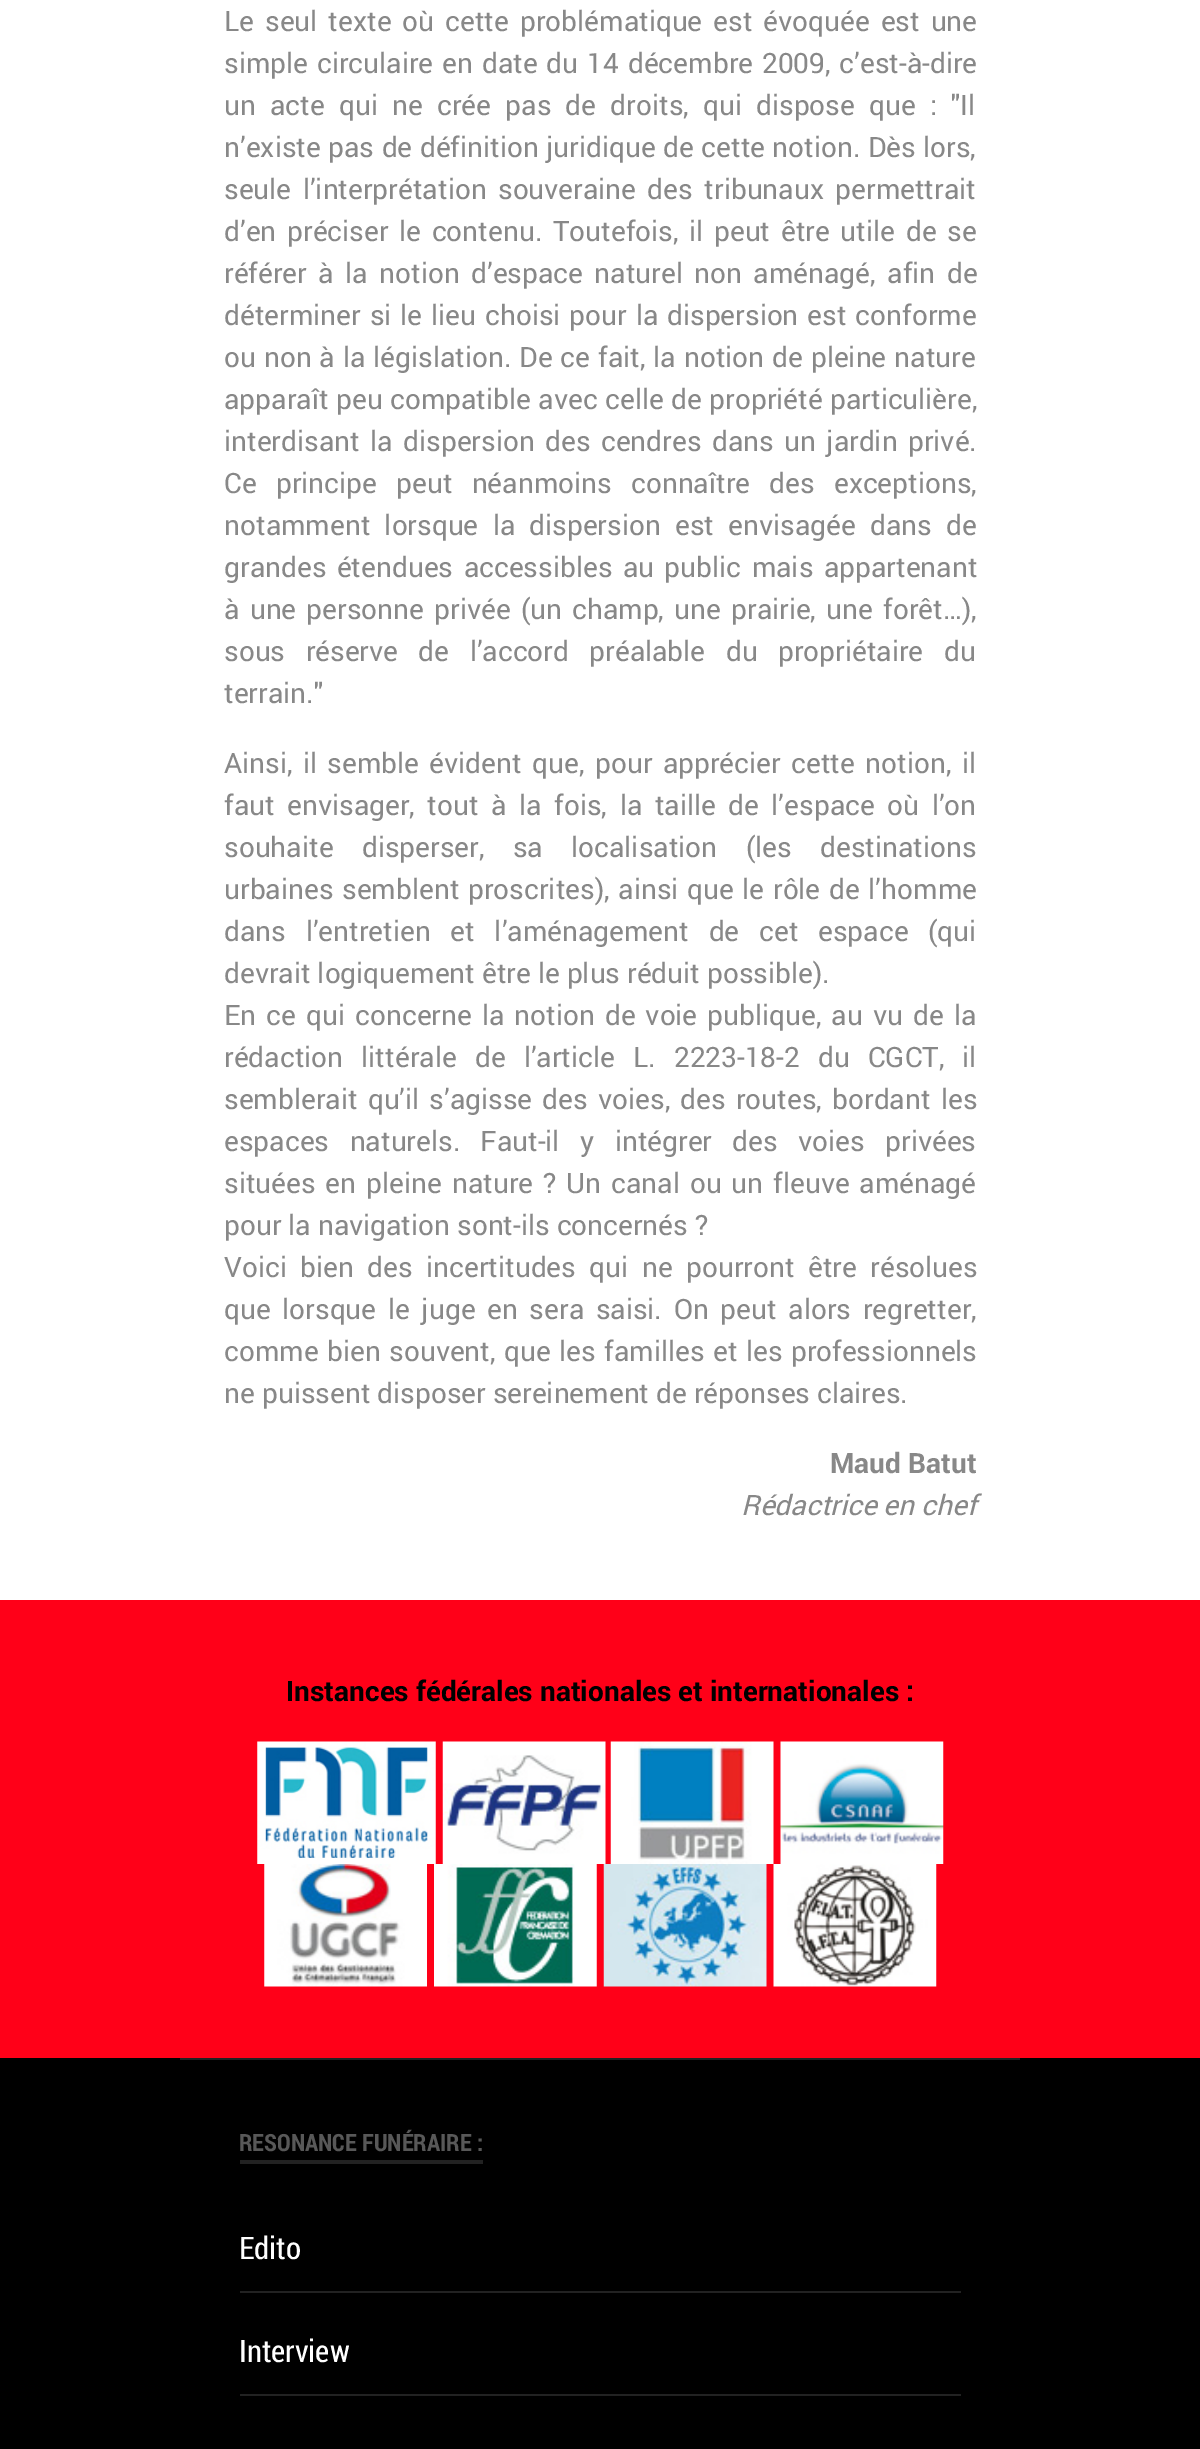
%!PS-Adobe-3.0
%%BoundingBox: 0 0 1200 2449
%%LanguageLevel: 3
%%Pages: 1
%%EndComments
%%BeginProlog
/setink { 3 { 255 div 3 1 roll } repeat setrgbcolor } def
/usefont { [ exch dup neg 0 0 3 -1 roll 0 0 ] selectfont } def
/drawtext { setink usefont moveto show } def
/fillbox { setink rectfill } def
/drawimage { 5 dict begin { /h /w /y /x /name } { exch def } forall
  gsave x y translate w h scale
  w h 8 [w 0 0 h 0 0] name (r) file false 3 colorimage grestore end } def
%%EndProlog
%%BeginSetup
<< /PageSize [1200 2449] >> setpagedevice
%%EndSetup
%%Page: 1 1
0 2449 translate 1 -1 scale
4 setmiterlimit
0 0 1200 2449 255 255 255 fillbox
/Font-Regular 28 usefont
136 136 136 setink
224 31 moveto 4 0 32 (Le seul texte où cette problématique est évoquée est une) widthshow
224 73 moveto 2 0 32 (simple circulaire en date du 14 décembre 2009, c’est-à-dire) widthshow
224 115 moveto 7.25 0 32 (un acte qui ne crée pas de droits, qui dispose que : "Il) widthshow
224 157 moveto 0.5 0 32 (n’existe pas de définition juridique de cette notion. Dès lors,) widthshow
224 199 moveto 4.5 0 32 (seule l’interprétation souveraine des tribunaux permettrait) widthshow
224 241 moveto 3.75 0 32 (d’en préciser le contenu. Toutefois, il peut être utile de se) widthshow
224 283 moveto 4.5 0 32 (référer à la notion d’espace naturel non aménagé, afin de) widthshow
224 325 moveto 2 0 32 (déterminer si le lieu choisi pour la dispersion est conforme) widthshow
224 367 moveto 1 0 32 (ou non à la législation. De ce fait, la notion de pleine nature) widthshow
224 409 moveto 0.5 0 32 (apparaît peu compatible avec celle de propriété particulière,) widthshow
224 451 moveto 3.5 0 32 (interdisant la dispersion des cendres dans un jardin privé.) widthshow
224 493 moveto 12.25 0 32 (Ce principe peut néanmoins connaître des exceptions,) widthshow
224 535 moveto 7.25 0 32 (notamment lorsque la dispersion est envisagée dans de) widthshow
224 577 moveto 3.5 0 32 (grandes étendues accessibles au public mais appartenant) widthshow
224 619 moveto 3.25 0 32 (à une personne privée \(un champ, une prairie, une forêt…\),) widthshow
224 661 moveto 13.5 0 32 (sous réserve de l’accord préalable du propriétaire du) widthshow
(terrain.") 224 703 /Font-Regular 28 136 136 136 drawtext
224 773 moveto 3.5 0 32 (Ainsi, il semble évident que, pour apprécier cette notion, il) widthshow
224 815 moveto 5.6 0 32 (faut envisager, tout à la fois, la taille de l’espace où l’on) widthshow
224 857 moveto 21.5 0 32 (souhaite disperser, sa localisation \(les destinations) widthshow
224 899 moveto 1.75 0 32 (urbaines semblent proscrites\), ainsi que le rôle de l’homme) widthshow
224 941 moveto 12.75 0 32 (dans l’entretien et l’aménagement de cet espace \(qui) widthshow
(devrait logiquement être le plus réduit possible\).) 224 983 /Font-Regular 28 136 136 136 drawtext
224 1025 moveto 3.1 0 32 (En ce qui concerne la notion de voie publique, au vu de la) widthshow
224 1067 moveto 11.25 0 32 (rédaction littérale de l’article L. 2223-18-2 du CGCT, il) widthshow
224 1109 moveto 3.25 0 32 (semblerait qu’il s’agisse des voies, des routes, bordant les) widthshow
224 1151 moveto 13.5 0 32 (espaces naturels. Faut-il y intégrer des voies privées) widthshow
224 1193 moveto 3 0 32 (situées en pleine nature ? Un canal ou un fleuve aménagé) widthshow
(pour la navigation sont-ils concernés ?) 224 1235 /Font-Regular 28 136 136 136 drawtext
224 1277 moveto 6.5 0 32 (Voici bien des incertitudes qui ne pourront être résolues) widthshow
224 1319 moveto 4.75 0 32 (que lorsque le juge en sera saisi. On peut alors regretter,) widthshow
224 1361 moveto 1.5 0 32 (comme bien souvent, que les familles et les professionnels) widthshow
(ne puissent disposer sereinement de réponses claires.) 224 1403 /Font-Regular 28 136 136 136 drawtext
(Maud Batut) 830 1473 /Font-Bold 28 136 136 136 drawtext
(Rédactrice en chef) 741 1515 /Font-Italic 28 136 136 136 drawtext
0 1600 1200 458 255 0 24 fillbox
(Instances fédérales nationales et internationales :) 286 1701 /Font-Bold 28 0 0 0 drawtext
(assets/img1.rgb) 257 1741 179 123 drawimage
(assets/img2.rgb) 442 1741 164 123 drawimage
(assets/img3.rgb) 610 1741 164 123 drawimage
(assets/img4.rgb) 780 1741 164 123 drawimage
(assets/img5.rgb) 264 1864 163 123 drawimage
(assets/img6.rgb) 434 1864 163 123 drawimage
(assets/img7.rgb) 603 1864 164 123 drawimage
(assets/img8.rgb) 773 1864 164 123 drawimage
0 2058 1200 391 0 0 0 fillbox
180 2058 840 2 34 34 34 fillbox
(RESONANCE FUNÉRAIRE :) 239 2151 /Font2-Bold 23.75 88 88 88 drawtext
240 2160 243 4 34 34 34 fillbox
240 2291 721 2 34 34 34 fillbox
(Edito) 239 2259 /Font2-Regular 31 255 255 255 drawtext
240 2394 721 2 34 34 34 fillbox
(Interview) 239 2362 /Font2-Regular 31 255 255 255 drawtext
showpage
%%EOF
